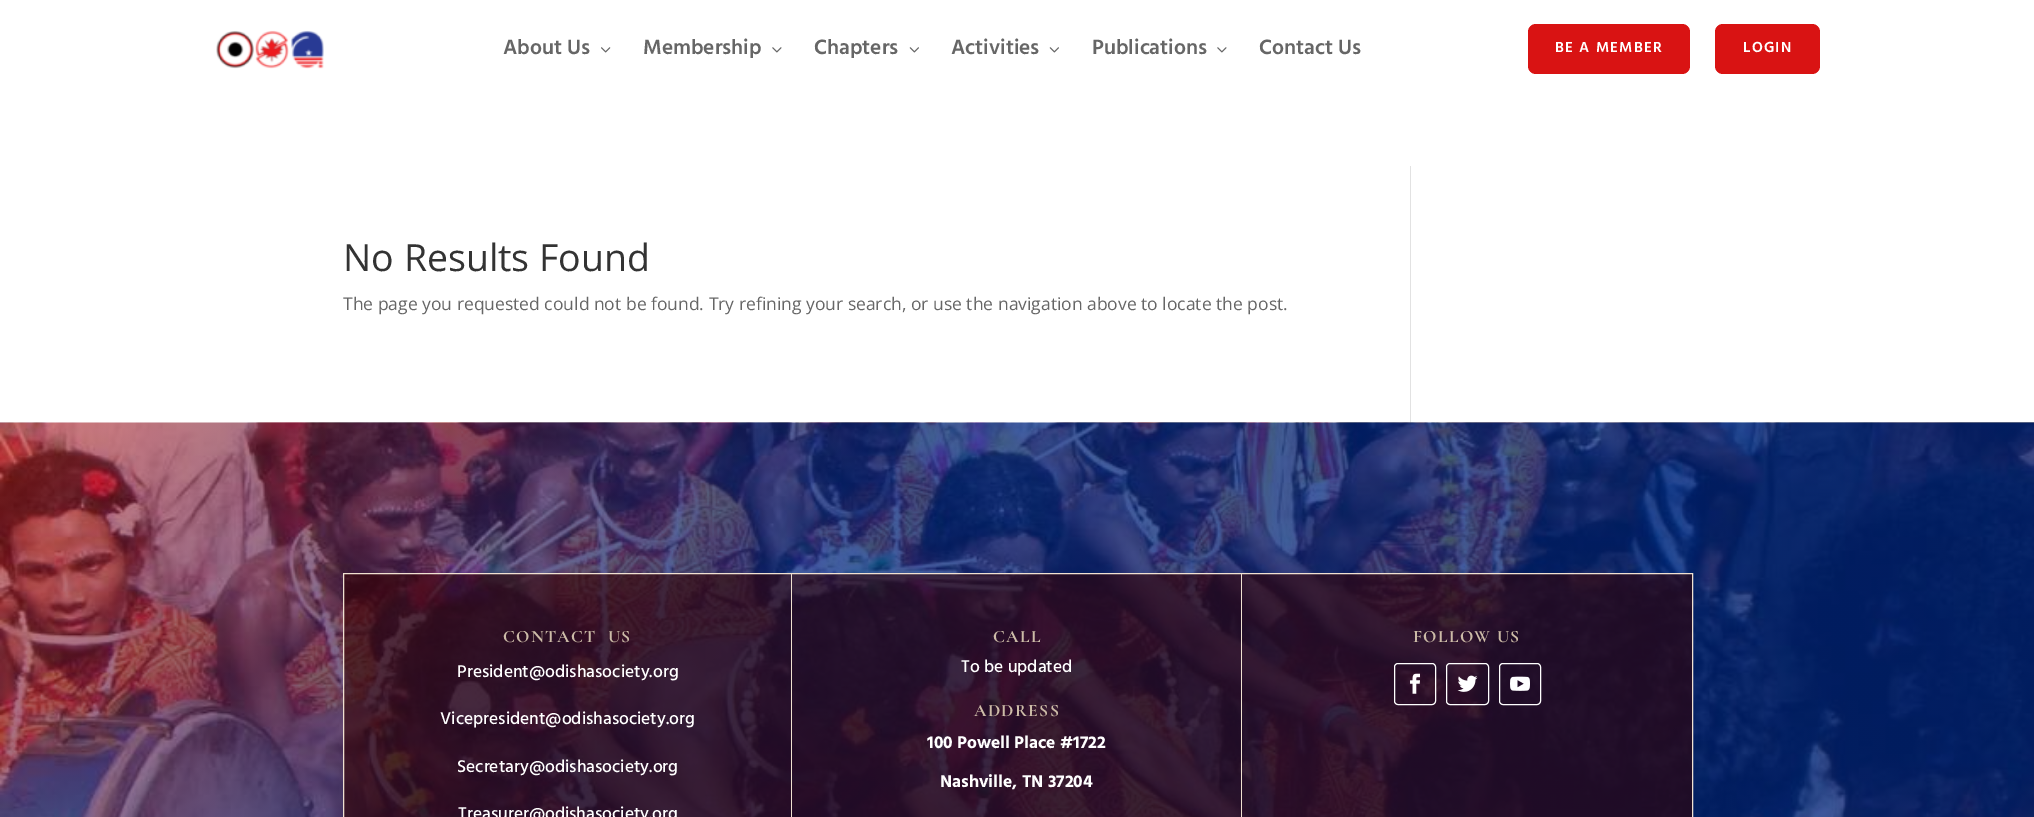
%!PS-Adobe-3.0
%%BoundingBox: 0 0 2034 817
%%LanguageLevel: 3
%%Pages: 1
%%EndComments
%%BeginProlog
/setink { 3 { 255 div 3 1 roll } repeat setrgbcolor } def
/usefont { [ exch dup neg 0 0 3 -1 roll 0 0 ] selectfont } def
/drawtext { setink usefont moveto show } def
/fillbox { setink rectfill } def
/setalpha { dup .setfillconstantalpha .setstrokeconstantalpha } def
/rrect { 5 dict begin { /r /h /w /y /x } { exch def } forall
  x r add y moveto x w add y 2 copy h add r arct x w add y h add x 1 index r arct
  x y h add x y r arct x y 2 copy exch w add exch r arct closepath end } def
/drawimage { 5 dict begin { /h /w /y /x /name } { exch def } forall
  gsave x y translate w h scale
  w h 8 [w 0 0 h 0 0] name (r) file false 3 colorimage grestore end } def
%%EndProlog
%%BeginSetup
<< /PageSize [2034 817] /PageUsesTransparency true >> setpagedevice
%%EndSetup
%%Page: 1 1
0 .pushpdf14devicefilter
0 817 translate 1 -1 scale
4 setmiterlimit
0 0 2034 817 255 255 255 fillbox
(assets/img1.rgb) 216 30 108 39 drawimage
(About Us) 503 54 /Hind-SemiBold 21.25 102 102 102 drawtext
(assets/img2.rgb) 601 47 10 6 drawimage
(Membership) 643 54 /Hind-SemiBold 21.25 102 102 102 drawtext
(assets/img3.rgb) 772 47 10 6 drawimage
(Chapters) 814 54 /Hind-SemiBold 21.25 102 102 102 drawtext
(assets/img4.rgb) 909 47 10 6 drawimage
(Activities) 951 54 /Hind-SemiBold 21.25 102 102 102 drawtext
(assets/img4.rgb) 1049 47 10 6 drawimage
(Publications) 1092 54 /Hind-SemiBold 21.25 102 102 102 drawtext
(assets/img3.rgb) 1217 47 10 6 drawimage
(Contact Us) 1259 54 /Hind-SemiBold 21.25 102 102 102 drawtext
217 19 19 setink
1528 24 162 50 8 rrect fill
/Hind-SemiBold 15 usefont
255 255 255 setink
1555 52 moveto 1.25 0 (BE A MEMBER) ashow
217 19 19 setink
1715 24 105 50 8 rrect fill
255 255 255 setink
1743 52 moveto 1.25 0 (LOGIN) ashow
(No Results Found) 343 271 /OpenSans-Regular 37.5 51 51 51 drawtext
(The page you requested could not be found. Try refining your search, or use the navigation above to locate the post.) 343 310 /OpenSans-Regular 17.5 102 102 102 drawtext
1410 166 1 257 226 226 226 fillbox
(assets/img5.rgb) 0 422 2034 395 drawimage
0.6 setalpha
51 0 0 setink
343.5 573.5 moveto 1692.5 573.5 lineto 1692.5 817.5 lineto 343.5 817.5 lineto closepath fill
1 setalpha
240 225 209 setink
343.5 573.5 moveto 1692.5 573.5 lineto 1692.5 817.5 lineto 343.5 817.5 lineto closepath stroke
791 574 1 243 240 225 209 fillbox
/CormorantGaramond-Bold 17.5 usefont
204 187 167 setink
503 642 moveto 1.25 0 (CONTACT  US) ashow
(President@odishasociety.org) 457 677 /Hind-Medium 17.5 255 255 255 drawtext
(Vicepresident@odishasociety.org) 440 724 /Hind-Medium 17.5 255 255 255 drawtext
(Secretary@odishasociety.org) 457 772 /Hind-Medium 17.5 255 255 255 drawtext
(Treasurer@odishasociety.org) 458 819 /Hind-Medium 17.5 255 255 255 drawtext
1241 574 1 243 240 225 209 fillbox
/CormorantGaramond-Bold 17.5 usefont
204 187 167 setink
993 642 moveto 1.25 0 (CALL) ashow
(To be updated) 961 672 /Hind-Medium 17.5 255 255 255 drawtext
/CormorantGaramond-Bold 17.5 usefont
204 187 167 setink
974 716 moveto 1.25 0 (ADDRESS) ashow
(100 Powell Place #1722) 927 748 /Hind-Bold 17.5 255 255 255 drawtext
(Nashville, TN 37204) 940 787 /Hind-Bold 17.5 255 255 255 drawtext
/CormorantGaramond-Bold 17.5 usefont
204 187 167 setink
1413 642 moveto 1.25 0 (FOLLOW US) ashow
255 255 255 setink
1394.5 663.5 41 41 3.5 rrect stroke
(assets/img6.rgb) 1410 673 10 21 drawimage
1446.5 663.5 42 41 3.5 rrect stroke
(assets/img7.rgb) 1457 675 21 17 drawimage
1499.5 663.5 41 41 3.5 rrect stroke
(assets/img8.rgb) 1510 676 20 15 drawimage
.poppdf14devicefilter showpage
%%EOF
